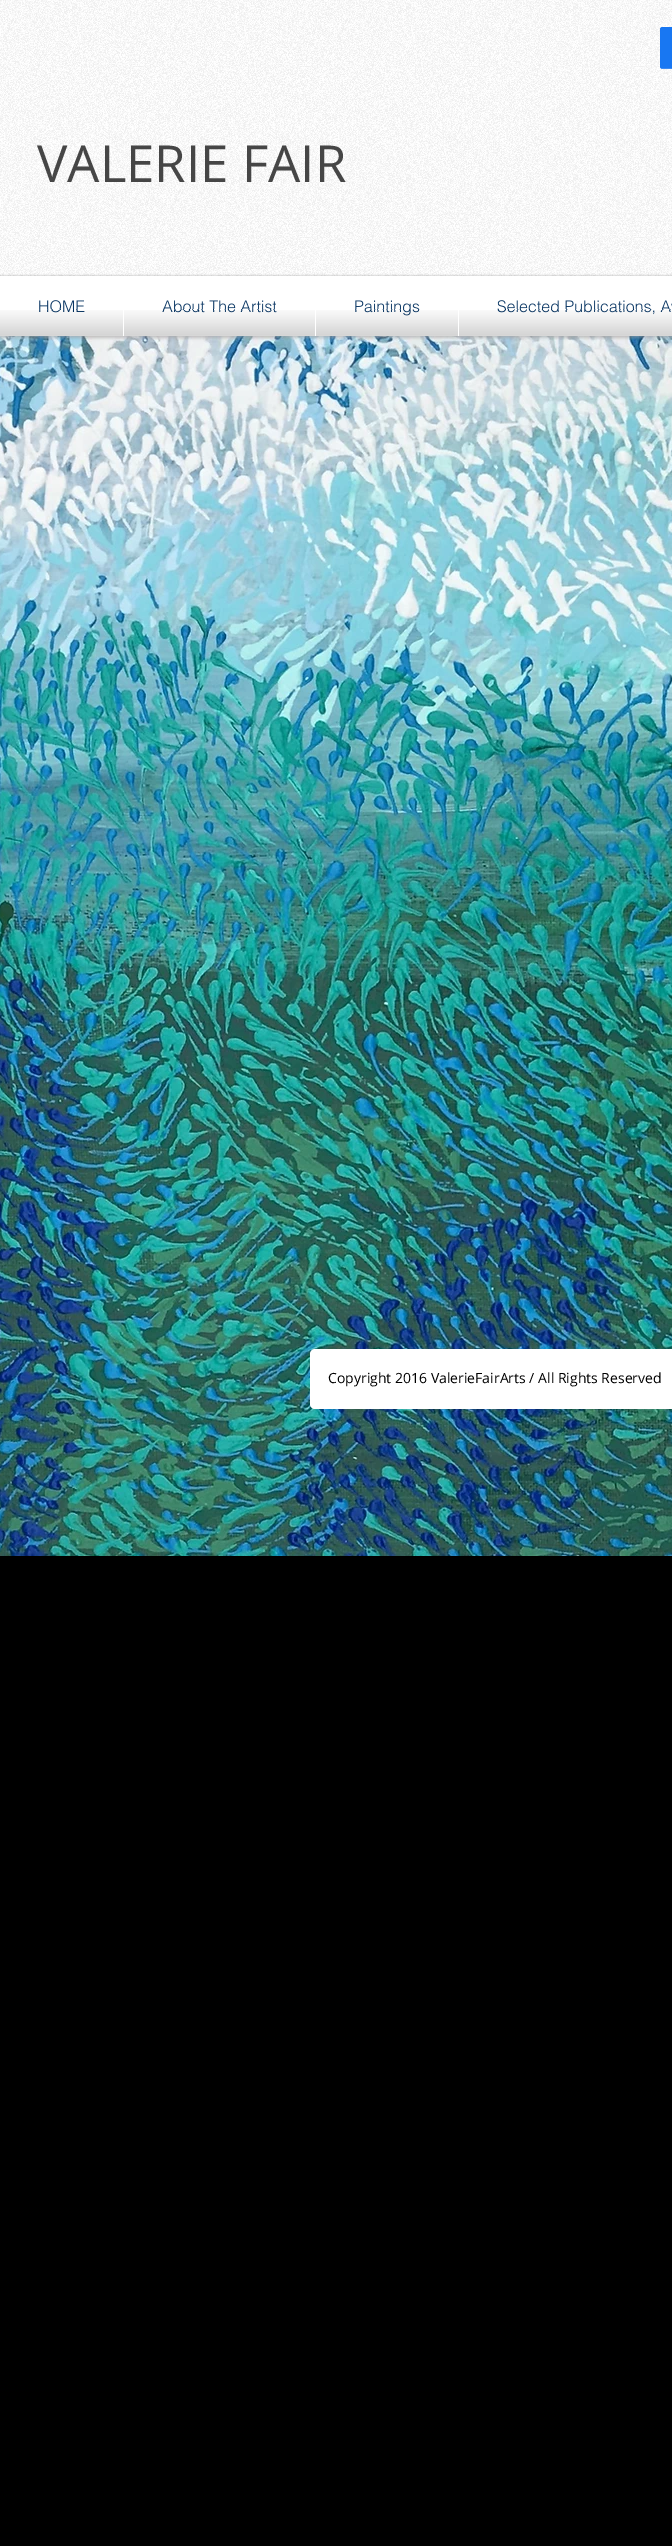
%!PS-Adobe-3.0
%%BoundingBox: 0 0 672 2546
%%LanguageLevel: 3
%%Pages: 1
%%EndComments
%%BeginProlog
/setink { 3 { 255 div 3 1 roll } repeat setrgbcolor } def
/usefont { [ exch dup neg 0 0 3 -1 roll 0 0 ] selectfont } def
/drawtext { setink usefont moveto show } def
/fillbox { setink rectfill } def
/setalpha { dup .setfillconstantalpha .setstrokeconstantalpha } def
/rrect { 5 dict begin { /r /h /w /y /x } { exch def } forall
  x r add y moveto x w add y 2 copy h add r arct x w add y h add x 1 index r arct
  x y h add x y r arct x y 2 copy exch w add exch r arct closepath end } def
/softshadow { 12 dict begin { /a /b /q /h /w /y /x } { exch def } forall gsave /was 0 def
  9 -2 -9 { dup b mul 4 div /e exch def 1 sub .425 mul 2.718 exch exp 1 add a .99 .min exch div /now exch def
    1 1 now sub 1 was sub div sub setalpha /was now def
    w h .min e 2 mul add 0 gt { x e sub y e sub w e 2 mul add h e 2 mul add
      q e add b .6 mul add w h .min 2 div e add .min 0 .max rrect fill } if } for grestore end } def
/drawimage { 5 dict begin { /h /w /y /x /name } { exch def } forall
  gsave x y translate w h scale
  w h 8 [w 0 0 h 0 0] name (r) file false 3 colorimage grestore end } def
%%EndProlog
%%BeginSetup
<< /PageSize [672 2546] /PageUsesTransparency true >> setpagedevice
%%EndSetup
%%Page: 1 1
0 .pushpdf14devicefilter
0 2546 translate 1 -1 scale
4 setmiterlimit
0 0 672 2546 0 0 0 fillbox
0 0 672 276 255 255 255 fillbox
(assets/img1.rgb) 0 0 672 276 drawimage
(assets/img2.rgb) 660 27 12 42 drawimage
(VALERIE FAIR) 37 182 /OpenSans-Regular 51 70 70 70 drawtext
0 0 0 setink
-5 277 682 1280 0 1.5 0.5 softshadow
162 158 158 setink
0 278 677 60 0 1.5 0.6 softshadow
(assets/img11.rgb) 0 336 672 1220 drawimage
0 278 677 60 0 1.5 0.6 softshadow
0 276 672 60 255 255 255 fillbox
(HOME) 38 312 /helvetica-Light 16 0 46 93 drawtext
(assets/img3.rgb) 39 300 45 9 drawimage
(assets/img4.rgb) 0 310 123 26 drawimage
(About The Artist) 162 312 /helvetica-Light 16 0 46 93 drawtext
(assets/img5.rgb) 164 300 112 9 drawimage
(assets/img6.rgb) 124 310 191 26 drawimage
(Paintings) 354 312 /helvetica-Light 16 0 46 93 drawtext
(assets/img7.rgb) 355 300 64 9 drawimage
(assets/img8.rgb) 316 310 142 26 drawimage
(Selected Publications, A) 497 312 /helvetica-Light 16 0 46 93 drawtext
(assets/img9.rgb) 498 300 174 9 drawimage
(assets/img10.rgb) 459 310 213 26 drawimage
255 255 255 setink
310 1349 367 60 5 rrect fill
(Copyright 2016 ValerieFairArts / All Rights Reserved) 328 1383 /OpenSans-Regular 14 0 0 0 drawtext
.poppdf14devicefilter showpage
%%EOF
